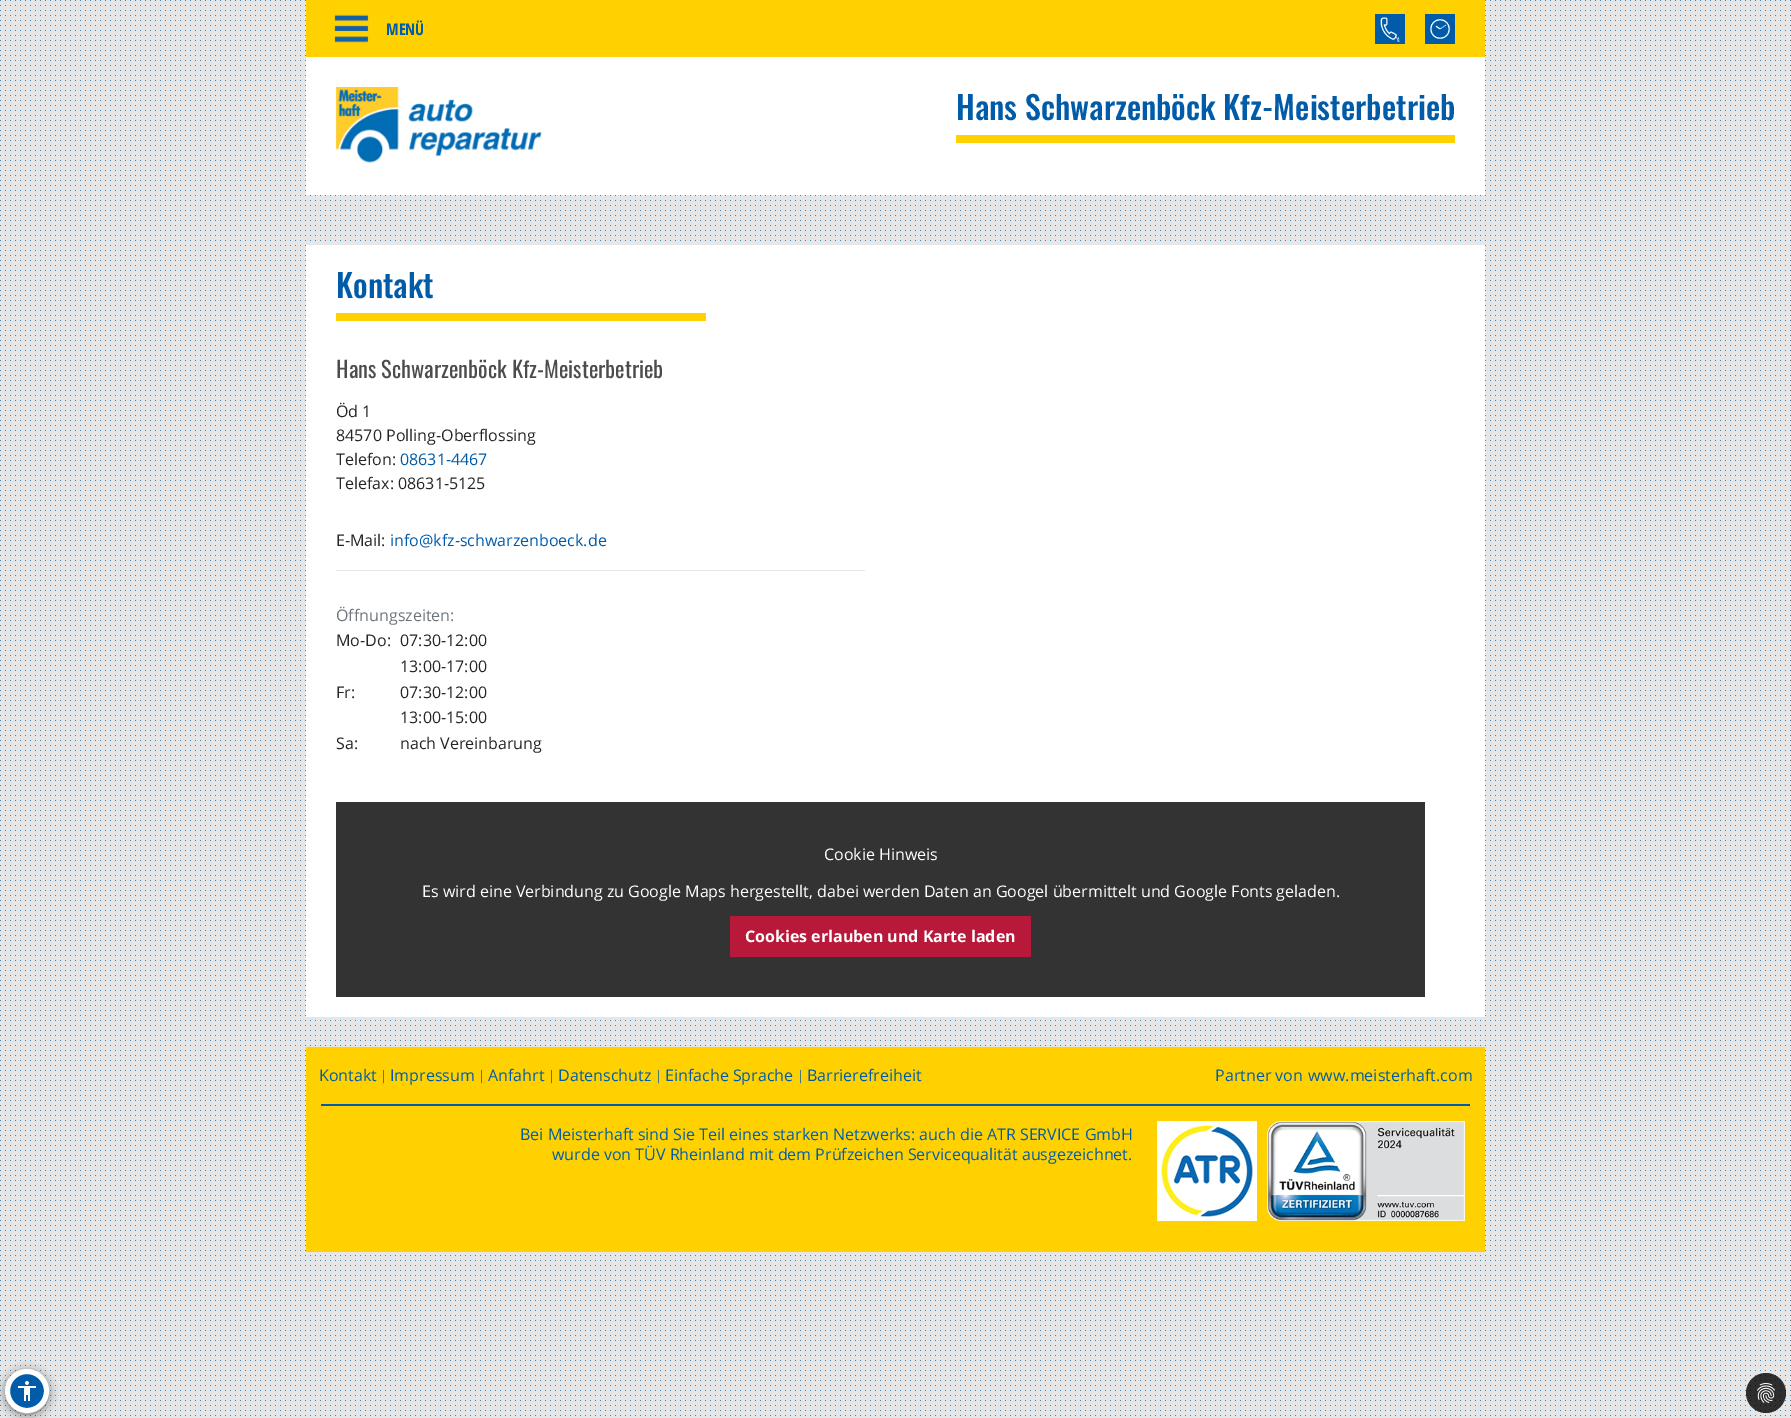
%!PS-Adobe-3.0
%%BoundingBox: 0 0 1791 1418
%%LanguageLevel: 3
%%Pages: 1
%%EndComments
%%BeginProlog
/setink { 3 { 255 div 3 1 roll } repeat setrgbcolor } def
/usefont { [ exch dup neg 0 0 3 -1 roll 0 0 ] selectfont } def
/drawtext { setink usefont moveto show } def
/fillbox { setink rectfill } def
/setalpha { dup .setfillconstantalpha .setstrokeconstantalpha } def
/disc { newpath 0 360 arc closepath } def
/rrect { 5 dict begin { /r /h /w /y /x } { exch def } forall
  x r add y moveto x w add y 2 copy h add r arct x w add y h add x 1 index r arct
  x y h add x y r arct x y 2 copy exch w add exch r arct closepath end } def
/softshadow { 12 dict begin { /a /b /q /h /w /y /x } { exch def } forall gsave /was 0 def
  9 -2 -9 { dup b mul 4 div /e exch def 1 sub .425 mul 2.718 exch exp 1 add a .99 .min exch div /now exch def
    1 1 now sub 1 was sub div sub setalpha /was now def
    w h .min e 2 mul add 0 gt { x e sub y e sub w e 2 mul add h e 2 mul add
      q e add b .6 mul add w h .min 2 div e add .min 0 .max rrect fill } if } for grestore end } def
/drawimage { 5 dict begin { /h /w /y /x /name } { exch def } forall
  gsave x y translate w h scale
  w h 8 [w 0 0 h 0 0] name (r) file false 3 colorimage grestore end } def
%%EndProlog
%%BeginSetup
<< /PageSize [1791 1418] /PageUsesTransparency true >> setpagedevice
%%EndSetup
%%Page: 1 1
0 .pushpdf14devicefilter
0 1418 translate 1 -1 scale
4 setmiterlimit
0 0 1791 1418 230 230 230 fillbox
(assets/img1.rgb) 0 0 1791 1416 drawimage
306 0 1179 57 255 209 0 fillbox
(assets/img2.rgb) 334 14 35 29 drawimage
(MENÜ) 386 35 /OpenSansCondensed-Bold 16 0 92 169 drawtext
1375 14 30 30 0 92 169 fillbox
(assets/img3.rgb) 1380 17 20 25 drawimage
1425 14 30 30 0 92 169 fillbox
(assets/img4.rgb) 1430 19 20 20 drawimage
306 57 1179 138 255 255 255 fillbox
(assets/img5.rgb) 335 87 207 76 drawimage
956 135 499 8 255 209 0 fillbox
(Hans Schwarzenböck Kfz-Meisterbetrieb) 956 120 /Oswald-Medium 32 0 92 169 drawtext
306 245 1179 772 255 255 255 fillbox
336 313 370 8 255 209 0 fillbox
(Kontakt) 336 298 /Oswald-Medium 32 0 92 169 drawtext
(Hans Schwarzenböck Kfz-Meisterbetrieb) 336 378 /Oswald-Regular 22.4 76 76 76 drawtext
(Öd 1) 336 417 /OpenSans-Regular 16 38 38 38 drawtext
(84570 Polling-Oberflossing) 336 441 /OpenSans-Regular 16 38 38 38 drawtext
(Telefon:) 336 465 /OpenSans-Regular 16 38 38 38 drawtext
(08631-4467) 400 465 /OpenSans-Regular 16 0 92 169 drawtext
(Telefax: 08631-5125) 336 489 /OpenSans-Regular 16 38 38 38 drawtext
(E-Mail:) 336 546 /OpenSans-Regular 16 38 38 38 drawtext
(info@kfz-schwarzenboeck.de) 390 546 /OpenSans-Regular 16 0 92 169 drawtext
336 570 529 1 230 230 230 fillbox
(Öffnungszeiten:) 336 621 /OpenSans-Regular 16 108 117 125 drawtext
(Mo-Do:) 336 646 /OpenSans-Regular 16 38 38 38 drawtext
(07:30-12:00) 400 646 /OpenSans-Regular 16 38 38 38 drawtext
(13:00-17:00) 400 672 /OpenSans-Regular 16 38 38 38 drawtext
(Fr:) 336 698 /OpenSans-Regular 16 38 38 38 drawtext
(07:30-12:00) 400 698 /OpenSans-Regular 16 38 38 38 drawtext
(13:00-15:00) 400 723 /OpenSans-Regular 16 38 38 38 drawtext
(Sa:) 336 749 /OpenSans-Regular 16 38 38 38 drawtext
(nach Vereinbarung) 400 749 /OpenSans-Regular 16 38 38 38 drawtext
336 802 1089 195 51 51 51 fillbox
(Cookie Hinweis) 824 860 /OpenSans-Regular 16 255 255 255 drawtext
(Es wird eine Verbindung zu Google Maps hergestellt, dabei werden Daten an Googel übermittelt und Google Fonts geladen.) 422 897 /OpenSans-Regular 16 255 255 255 drawtext
730 916 301 41 184 24 57 fillbox
(Cookies erlauben und Karte laden) 745 942 /OpenSans-Bold 16 255 255 255 drawtext
306 1047 1179 205 255 209 0 fillbox
(Kontakt) 319 1081 /OpenSans-Regular 16 0 92 169 drawtext
(|) 380 1080 /OpenSans-Regular 13 0 92 169 drawtext
(Impressum) 390 1081 /OpenSans-Regular 16 0 92 169 drawtext
(|) 478 1080 /OpenSans-Regular 13 0 92 169 drawtext
(Anfahrt) 488 1081 /OpenSans-Regular 16 0 92 169 drawtext
(|) 548 1080 /OpenSans-Regular 13 0 92 169 drawtext
(Datenschutz) 558 1081 /OpenSans-Regular 16 0 92 169 drawtext
(|) 655 1080 /OpenSans-Regular 13 0 92 169 drawtext
(Einfache Sprache) 665 1081 /OpenSans-Regular 16 0 92 169 drawtext
(|) 797 1080 /OpenSans-Regular 13 0 92 169 drawtext
(Barrierefreiheit) 807 1081 /OpenSans-Regular 16 0 92 169 drawtext
(Partner von) 1215 1081 /OpenSans-Regular 16 0 92 169 drawtext
(www.meisterhaft.com) 1308 1081 /OpenSans-Regular 16 0 92 169 drawtext
321 1104 1149 2 0 92 169 fillbox
(Bei Meisterhaft sind Sie Teil eines starken Netzwerks: auch die ATR SERVICE GmbH) 520 1140 /OpenSans-Regular 16 0 92 169 drawtext
(wurde von TÜV Rheinland mit dem Prüfzeichen Servicequalität ausgezeichnet.) 552 1160 /OpenSans-Regular 16 0 92 169 drawtext
(assets/img6.rgb) 1157 1121 100 100 drawimage
(assets/img7.rgb) 1267 1121 198 100 drawimage
0 0 0 setink
9 1375 36 36 18 6 1 softshadow
0 92 169 setink
27 1391 19.5 disc gsave fill grestore
255 255 255 setink
5 setlinewidth
stroke
(assets/img8.rgb) 18 1381 18 20 drawimage
0.8 setalpha
0 0 0 setink
1766 1393 20 disc fill
1 setalpha
(assets/img9.rgb) 1757 1383 18 20 drawimage
.poppdf14devicefilter showpage
%%EOF
